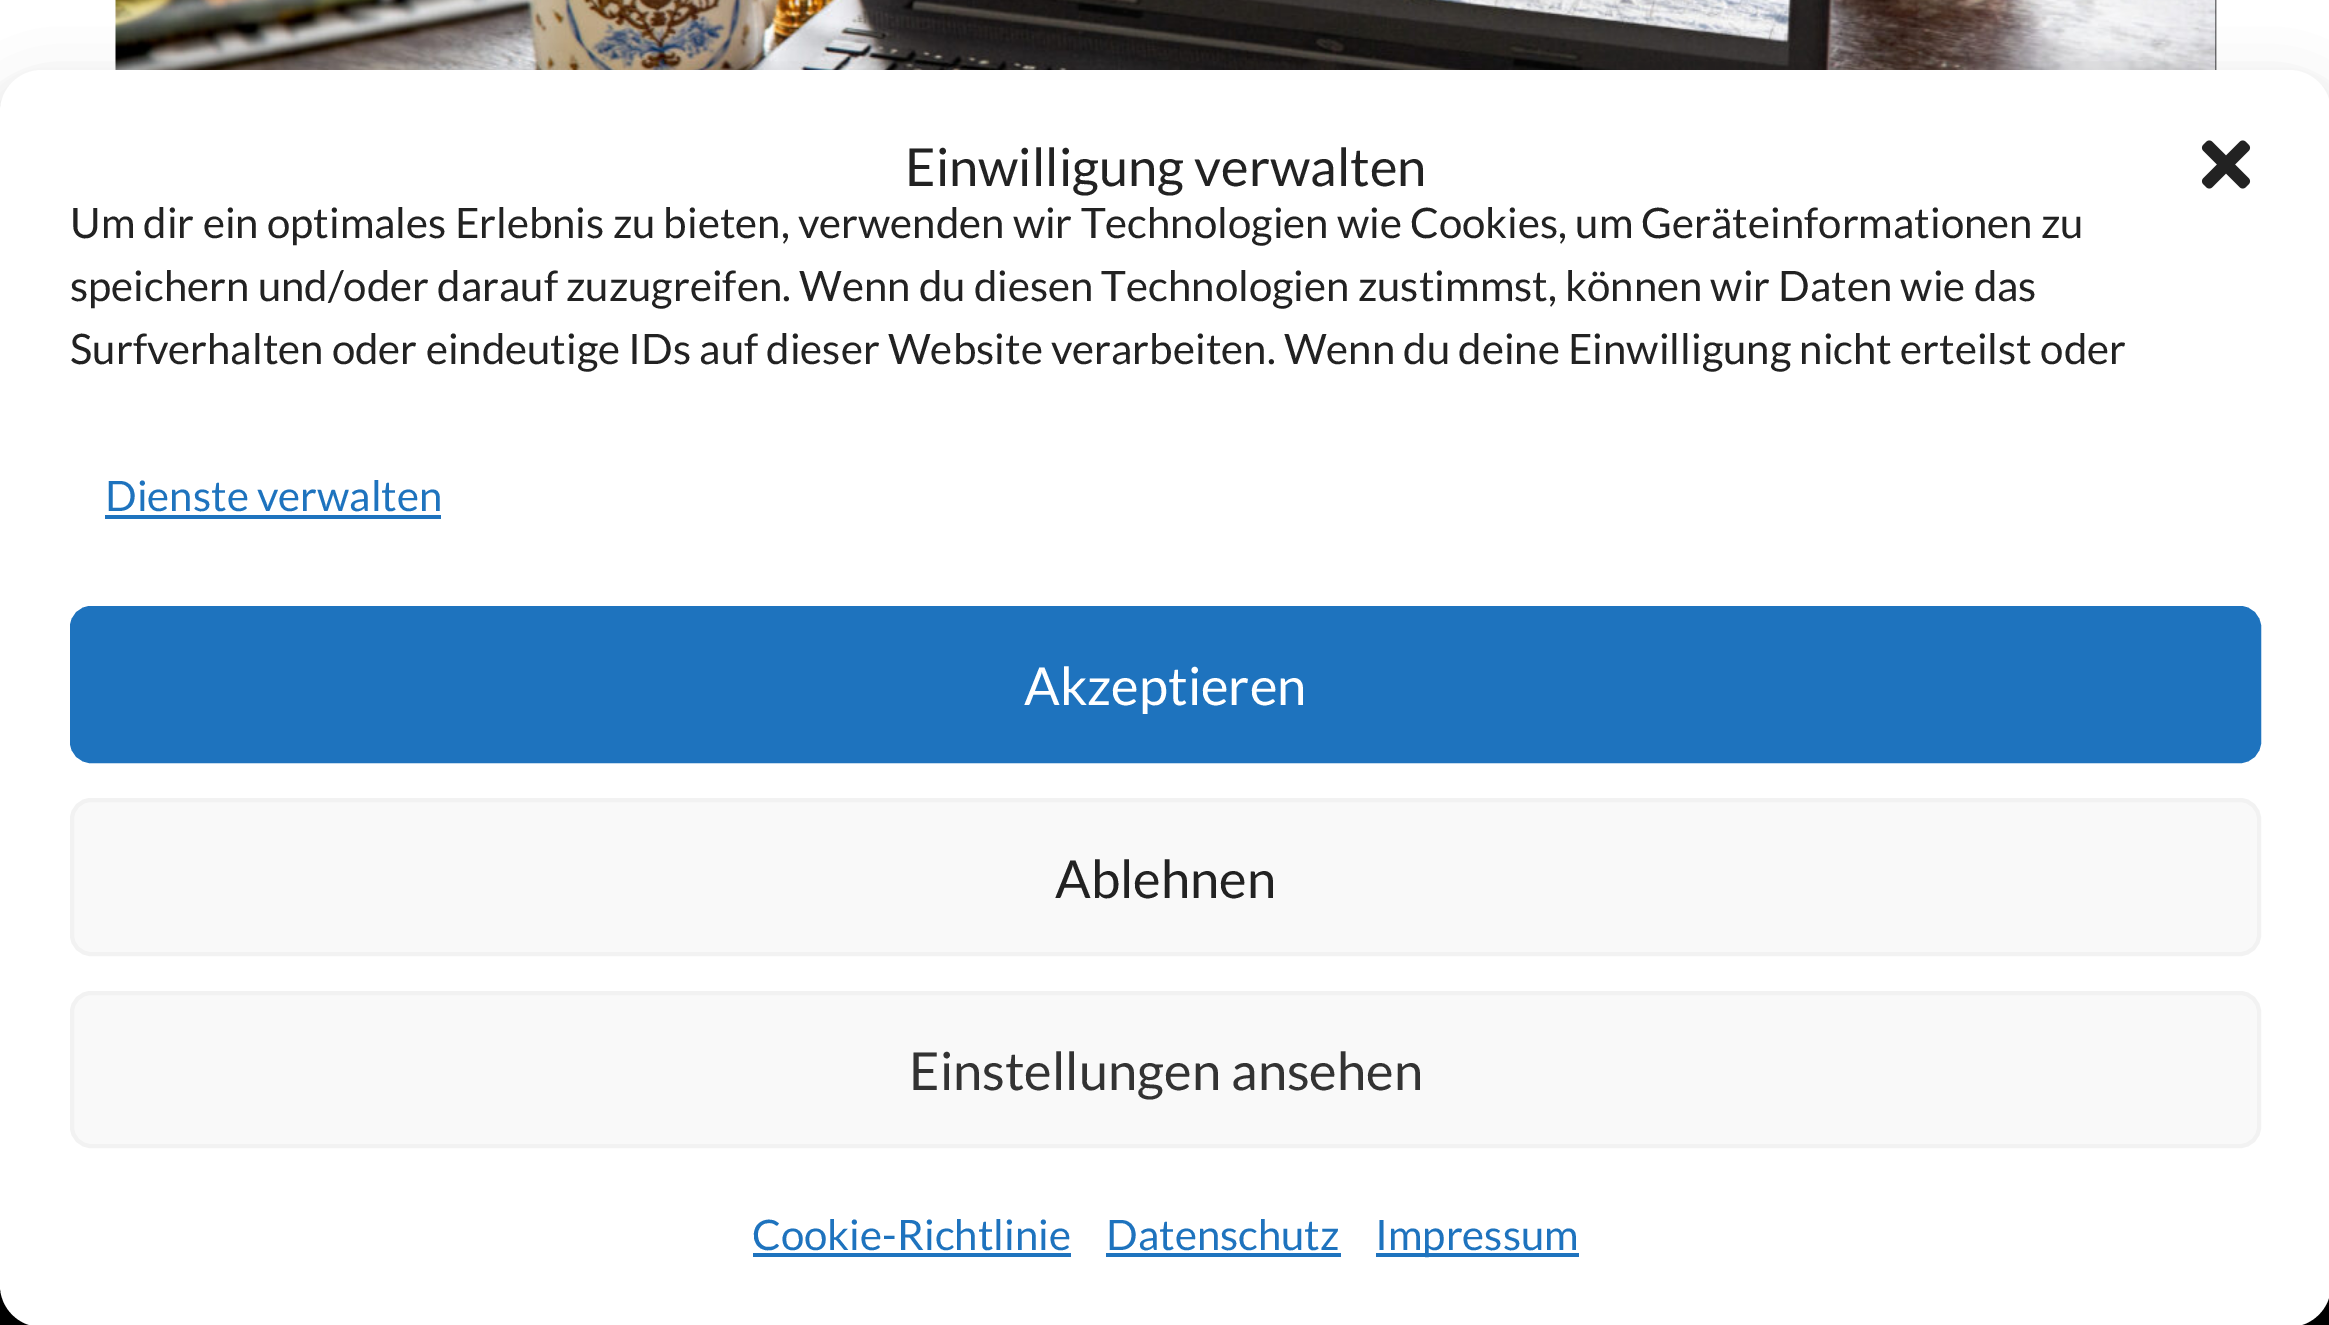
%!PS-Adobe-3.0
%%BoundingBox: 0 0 2329 1325
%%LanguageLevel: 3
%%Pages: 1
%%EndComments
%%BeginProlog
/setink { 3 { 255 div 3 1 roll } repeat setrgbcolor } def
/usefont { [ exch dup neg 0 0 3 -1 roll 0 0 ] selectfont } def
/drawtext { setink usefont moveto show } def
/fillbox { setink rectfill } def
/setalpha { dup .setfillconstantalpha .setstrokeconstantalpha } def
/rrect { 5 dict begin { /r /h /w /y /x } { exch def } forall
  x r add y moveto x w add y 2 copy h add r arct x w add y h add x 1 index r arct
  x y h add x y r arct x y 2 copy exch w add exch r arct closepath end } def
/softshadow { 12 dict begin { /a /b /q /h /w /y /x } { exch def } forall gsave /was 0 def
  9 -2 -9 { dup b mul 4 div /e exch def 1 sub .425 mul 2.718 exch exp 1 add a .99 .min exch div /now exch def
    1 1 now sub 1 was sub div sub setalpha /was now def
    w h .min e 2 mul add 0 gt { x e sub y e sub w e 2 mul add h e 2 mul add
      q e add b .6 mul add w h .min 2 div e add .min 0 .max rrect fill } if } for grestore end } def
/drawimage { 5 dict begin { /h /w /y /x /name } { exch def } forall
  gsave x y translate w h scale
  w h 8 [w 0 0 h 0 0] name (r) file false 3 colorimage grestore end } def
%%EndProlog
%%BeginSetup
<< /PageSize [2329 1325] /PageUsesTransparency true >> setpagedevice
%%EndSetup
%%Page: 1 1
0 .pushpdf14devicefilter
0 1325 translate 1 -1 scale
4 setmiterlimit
0 0 2329 1325 255 255 255 fillbox
0 0 0 setink
4 setlinewidth
118 -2 2096 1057 rectstroke
(assets/img1.rgb) 115 0 2101 70 drawimage
0 1285 2329 40 0 0 0 fillbox
0 91 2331 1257 42 10.5 0.23 softshadow
0 105 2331 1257 42 35 0.19 softshadow
255 255 255 setink
0 70 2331 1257 42 rrect fill
(Einwilligung verwalten) 905 186 /Lato-Regular 52.5 34 34 34 drawtext
(assets/img2.rgb) 2201 140 50 49 drawimage
(Um dir ein optimales Erlebnis zu bieten, verwenden wir Technologien wie Cookies, um Geräteinformationen zu) 70 238 /Lato-Regular 42 34 34 34 drawtext
(speichern und/oder darauf zuzugreifen. Wenn du diesen Technologien zustimmst, können wir Daten wie das) 70 301 /Lato-Regular 42 34 34 34 drawtext
(Surfverhalten oder eindeutige IDs auf dieser Website verarbeiten. Wenn du deine Einwilligung nicht erteilst oder) 70 364 /Lato-Regular 42 34 34 34 drawtext
(Dienste verwalten) 105 511 /Lato-Regular 42 30 115 190 drawtext
105 515 336 4 30 115 190 fillbox
72 608 2187 153 19 rrect gsave fill grestore
stroke
(Akzeptieren) 1024 705 /Lato-Regular 52.5 255 255 255 drawtext
249 249 249 setink
72 800 2187 154 19 rrect gsave fill grestore
242 242 242 setink
stroke
(Ablehnen) 1055 898 /Lato-Regular 52.5 34 34 34 drawtext
249 249 249 setink
72 993 2187 153 19 rrect gsave fill grestore
242 242 242 setink
stroke
(Einstellungen ansehen) 909 1090 /Lato-Regular 52.5 51 51 51 drawtext
(Cookie-Richtlinie) 752 1250 /Lato-Regular 42 30 115 190 drawtext
753 1253 318 4 30 115 190 fillbox
(Datenschutz) 1106 1250 /Lato-Regular 42 30 115 190 drawtext
1106 1253 235 4 30 115 190 fillbox
1376 1253 203 4 30 115 190 fillbox
(Impressum) 1375 1250 /Lato-Regular 42 30 115 190 drawtext
.poppdf14devicefilter showpage
%%EOF
